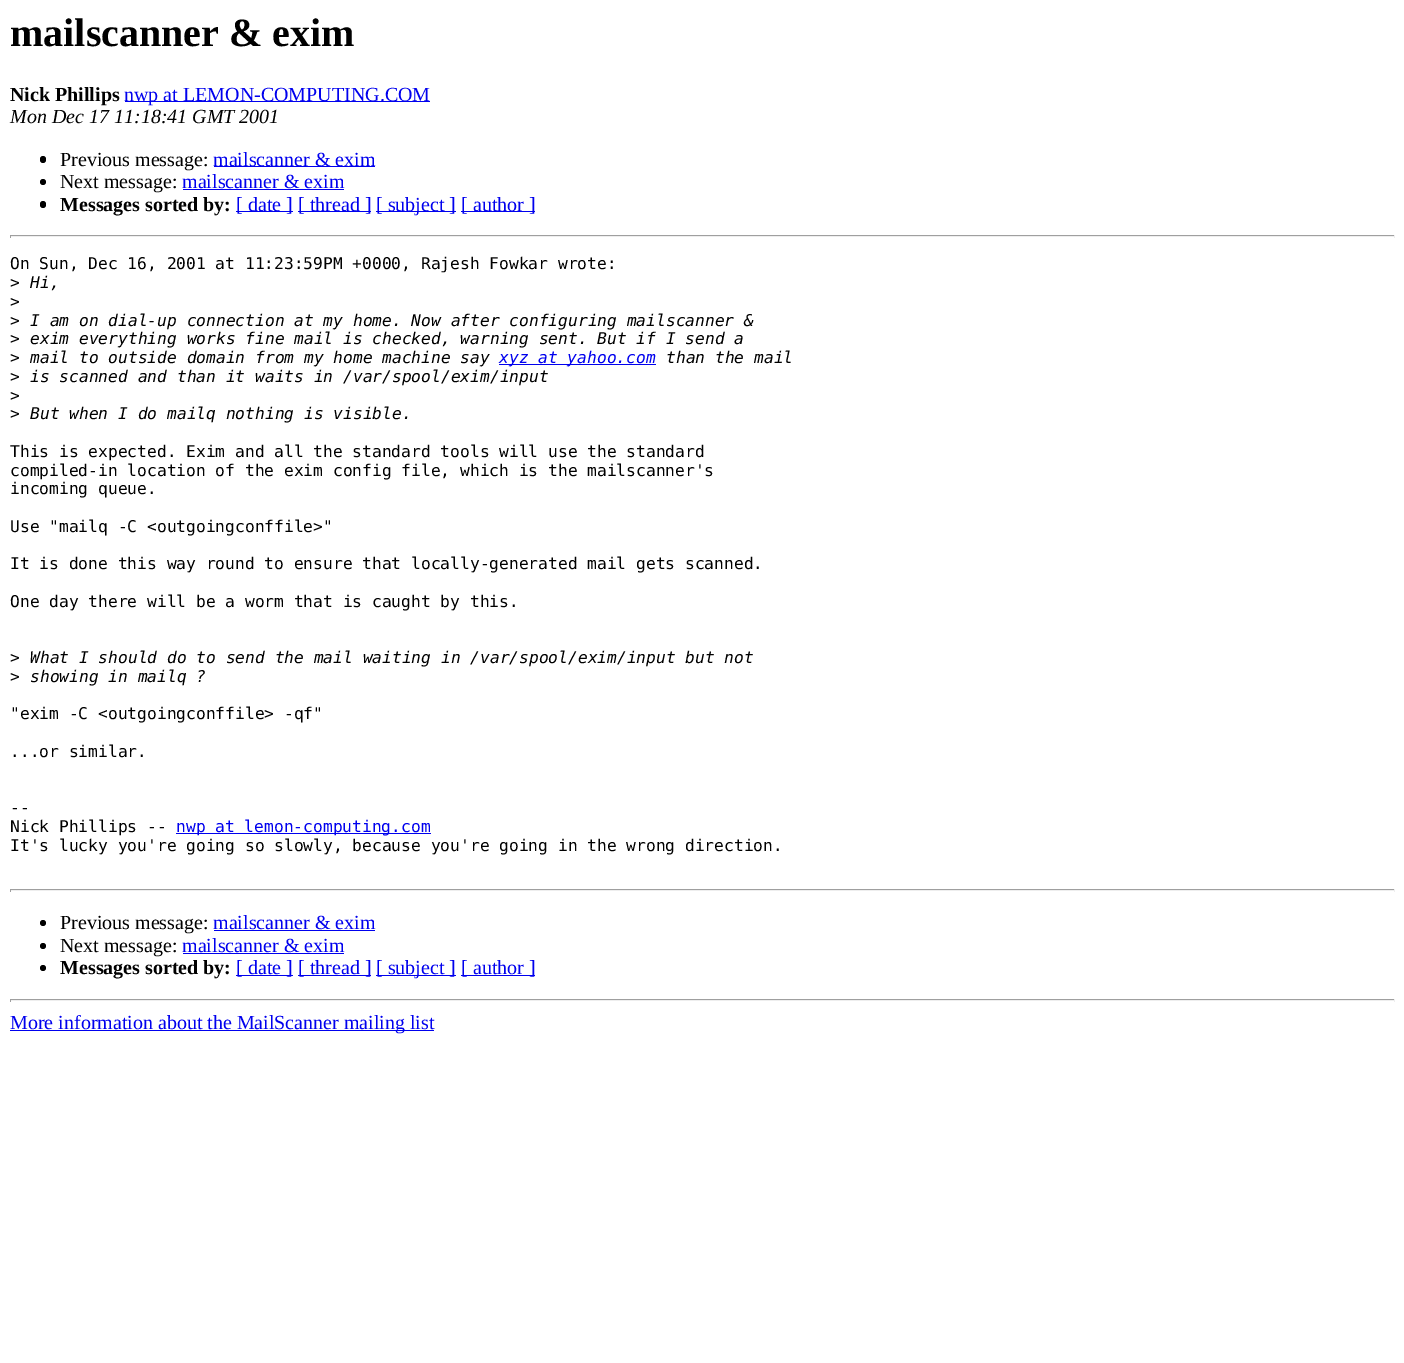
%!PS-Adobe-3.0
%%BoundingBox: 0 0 1404 1363
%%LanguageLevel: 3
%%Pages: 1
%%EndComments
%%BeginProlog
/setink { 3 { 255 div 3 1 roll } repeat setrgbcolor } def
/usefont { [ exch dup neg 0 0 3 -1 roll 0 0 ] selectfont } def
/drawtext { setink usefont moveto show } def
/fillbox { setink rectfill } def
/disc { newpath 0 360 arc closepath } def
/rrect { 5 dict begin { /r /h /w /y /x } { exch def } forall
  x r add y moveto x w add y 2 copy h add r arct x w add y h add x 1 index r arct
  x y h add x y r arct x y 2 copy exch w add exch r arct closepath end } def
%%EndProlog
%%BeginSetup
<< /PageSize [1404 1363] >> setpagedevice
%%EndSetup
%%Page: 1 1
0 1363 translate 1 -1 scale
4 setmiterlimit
0 0 1404 1363 255 255 255 fillbox
(mailscanner & exim) 10 46 /LiberationSerif-Bold 40 0 0 0 drawtext
(Nick Phillips) 10 101 /LiberationSerif-Bold 20 0 0 0 drawtext
125 101 305 1 0 0 238 fillbox
(nwp at LEMON-COMPUTING.COM) 124 101 /LiberationSerif-Regular 20 0 0 238 drawtext
(Mon Dec 17 11:18:41 GMT 2001) 10 123 /LiberationSerif-Italic 20 0 0 0 drawtext
40 156 6 7 3 rrect fill
(Previous message:) 60 166 /LiberationSerif-Regular 20 0 0 0 drawtext
214 166 161 1 0 0 238 fillbox
(mailscanner & exim) 213 166 /LiberationSerif-Regular 20 0 0 238 drawtext
0 0 0 setink
43 182 3 disc fill
(Next message:) 60 188 /LiberationSerif-Regular 20 0 0 0 drawtext
(mailscanner & exim) 182 188 /LiberationSerif-Regular 20 0 0 238 drawtext
183 189 161 1 0 0 238 fillbox
0 0 0 setink
40 201 6 7 3 rrect fill
(Messages sorted by:) 60 211 /LiberationSerif-Bold 20 0 0 0 drawtext
236 211 57 1 0 0 238 fillbox
([ date ]) 236 211 /LiberationSerif-Regular 20 0 0 238 drawtext
298 211 73 1 0 0 238 fillbox
([ thread ]) 298 211 /LiberationSerif-Regular 20 0 0 238 drawtext
376 211 80 1 0 0 238 fillbox
([ subject ]) 376 211 /LiberationSerif-Regular 20 0 0 238 drawtext
461 211 74 1 0 0 238 fillbox
([ author ]) 461 211 /LiberationSerif-Regular 20 0 0 238 drawtext
10 235 1385 1 159 159 159 fillbox
1394 235 1 3 238 238 238 fillbox
10 236 1385 1 238 238 238 fillbox
10 235 1 3 159 159 159 fillbox
(On Sun, Dec 16, 2001 at 11:23:59PM +0000, Rajesh Fowkar wrote:) 10 269 /DejaVuSansMono-Regular 16.25 0 0 0 drawtext
(>) 10 288 /DejaVuSansMono-Regular 16.25 0 0 0 drawtext
(Hi,) 30 288 /DejaVuSansMono-Italic 16.25 0 0 0 drawtext
(>) 10 307 /DejaVuSansMono-Regular 16.25 0 0 0 drawtext
(>) 10 326 /DejaVuSansMono-Regular 16.25 0 0 0 drawtext
(I am on dial-up connection at my home. Now after configuring mailscanner &) 30 326 /DejaVuSansMono-Italic 16.25 0 0 0 drawtext
(>) 10 344 /DejaVuSansMono-Regular 16.25 0 0 0 drawtext
(exim everything works fine mail is checked, warning sent. But if I send a) 30 344 /DejaVuSansMono-Italic 16.25 0 0 0 drawtext
(>) 10 363 /DejaVuSansMono-Regular 16.25 0 0 0 drawtext
(mail to outside domain from my home machine say) 30 363 /DejaVuSansMono-Italic 16.25 0 0 0 drawtext
499 364 157 1 0 0 238 fillbox
(xyz at yahoo.com) 499 363 /DejaVuSansMono-Italic 16.25 0 0 238 drawtext
(than the mail) 666 363 /DejaVuSansMono-Italic 16.25 0 0 0 drawtext
(>) 10 382 /DejaVuSansMono-Regular 16.25 0 0 0 drawtext
(is scanned and than it waits in /var/spool/exim/input) 30 382 /DejaVuSansMono-Italic 16.25 0 0 0 drawtext
(>) 10 401 /DejaVuSansMono-Regular 16.25 0 0 0 drawtext
(>) 10 419 /DejaVuSansMono-Regular 16.25 0 0 0 drawtext
(But when I do mailq nothing is visible.) 30 419 /DejaVuSansMono-Italic 16.25 0 0 0 drawtext
(This is expected. Exim and all the standard tools will use the standard) 10 457 /DejaVuSansMono-Regular 16.25 0 0 0 drawtext
(compiled-in location of the exim config file, which is the mailscanner's) 10 476 /DejaVuSansMono-Regular 16.25 0 0 0 drawtext
(incoming queue.) 10 494 /DejaVuSansMono-Regular 16.25 0 0 0 drawtext
(Use "mailq -C <outgoingconffile>") 10 532 /DejaVuSansMono-Regular 16.25 0 0 0 drawtext
(It is done this way round to ensure that locally-generated mail gets scanned.) 10 569 /DejaVuSansMono-Regular 16.25 0 0 0 drawtext
(One day there will be a worm that is caught by this.) 10 607 /DejaVuSansMono-Regular 16.25 0 0 0 drawtext
(>) 10 663 /DejaVuSansMono-Regular 16.25 0 0 0 drawtext
(What I should do to send the mail waiting in /var/spool/exim/input but not) 30 663 /DejaVuSansMono-Italic 16.25 0 0 0 drawtext
(>) 10 682 /DejaVuSansMono-Regular 16.25 0 0 0 drawtext
(showing in mailq ?) 30 682 /DejaVuSansMono-Italic 16.25 0 0 0 drawtext
("exim -C <outgoingconffile> -qf") 10 719 /DejaVuSansMono-Regular 16.25 0 0 0 drawtext
(...or similar.) 10 757 /DejaVuSansMono-Regular 16.25 0 0 0 drawtext
(--) 10 813 /DejaVuSansMono-Regular 16.25 0 0 0 drawtext
(Nick Phillips --) 10 832 /DejaVuSansMono-Regular 16.25 0 0 0 drawtext
176 833 255 1 0 0 238 fillbox
(nwp at lemon-computing.com) 176 832 /DejaVuSansMono-Regular 16.25 0 0 238 drawtext
(It's lucky you're going so slowly, because you're going in the wrong direction.) 10 851 /DejaVuSansMono-Regular 16.25 0 0 0 drawtext
10 889 1385 1 159 159 159 fillbox
1394 889 1 3 238 238 238 fillbox
10 890 1385 1 238 238 238 fillbox
10 889 1 3 159 159 159 fillbox
0 0 0 setink
43 923 3 disc fill
(Previous message:) 60 929 /LiberationSerif-Regular 20 0 0 0 drawtext
(mailscanner & exim) 213 929 /LiberationSerif-Regular 20 0 0 238 drawtext
214 930 161 1 0 0 238 fillbox
0 0 0 setink
43 946 3 disc fill
(Next message:) 60 952 /LiberationSerif-Regular 20 0 0 0 drawtext
(mailscanner & exim) 182 952 /LiberationSerif-Regular 20 0 0 238 drawtext
183 953 161 1 0 0 238 fillbox
0 0 0 setink
43 968 3 disc fill
(Messages sorted by:) 60 974 /LiberationSerif-Bold 20 0 0 0 drawtext
236 975 57 1 0 0 238 fillbox
([ date ]) 236 974 /LiberationSerif-Regular 20 0 0 238 drawtext
298 975 73 1 0 0 238 fillbox
([ thread ]) 298 974 /LiberationSerif-Regular 20 0 0 238 drawtext
376 975 80 1 0 0 238 fillbox
([ subject ]) 376 974 /LiberationSerif-Regular 20 0 0 238 drawtext
461 975 74 1 0 0 238 fillbox
([ author ]) 461 974 /LiberationSerif-Regular 20 0 0 238 drawtext
10 999 1385 1 159 159 159 fillbox
1394 999 1 3 238 238 238 fillbox
10 1000 1385 1 238 238 238 fillbox
10 999 1 3 159 159 159 fillbox
10 1030 424 1 0 0 238 fillbox
(More information about the MailScanner mailing list) 10 1029 /LiberationSerif-Regular 20 0 0 238 drawtext
showpage
%%EOF
